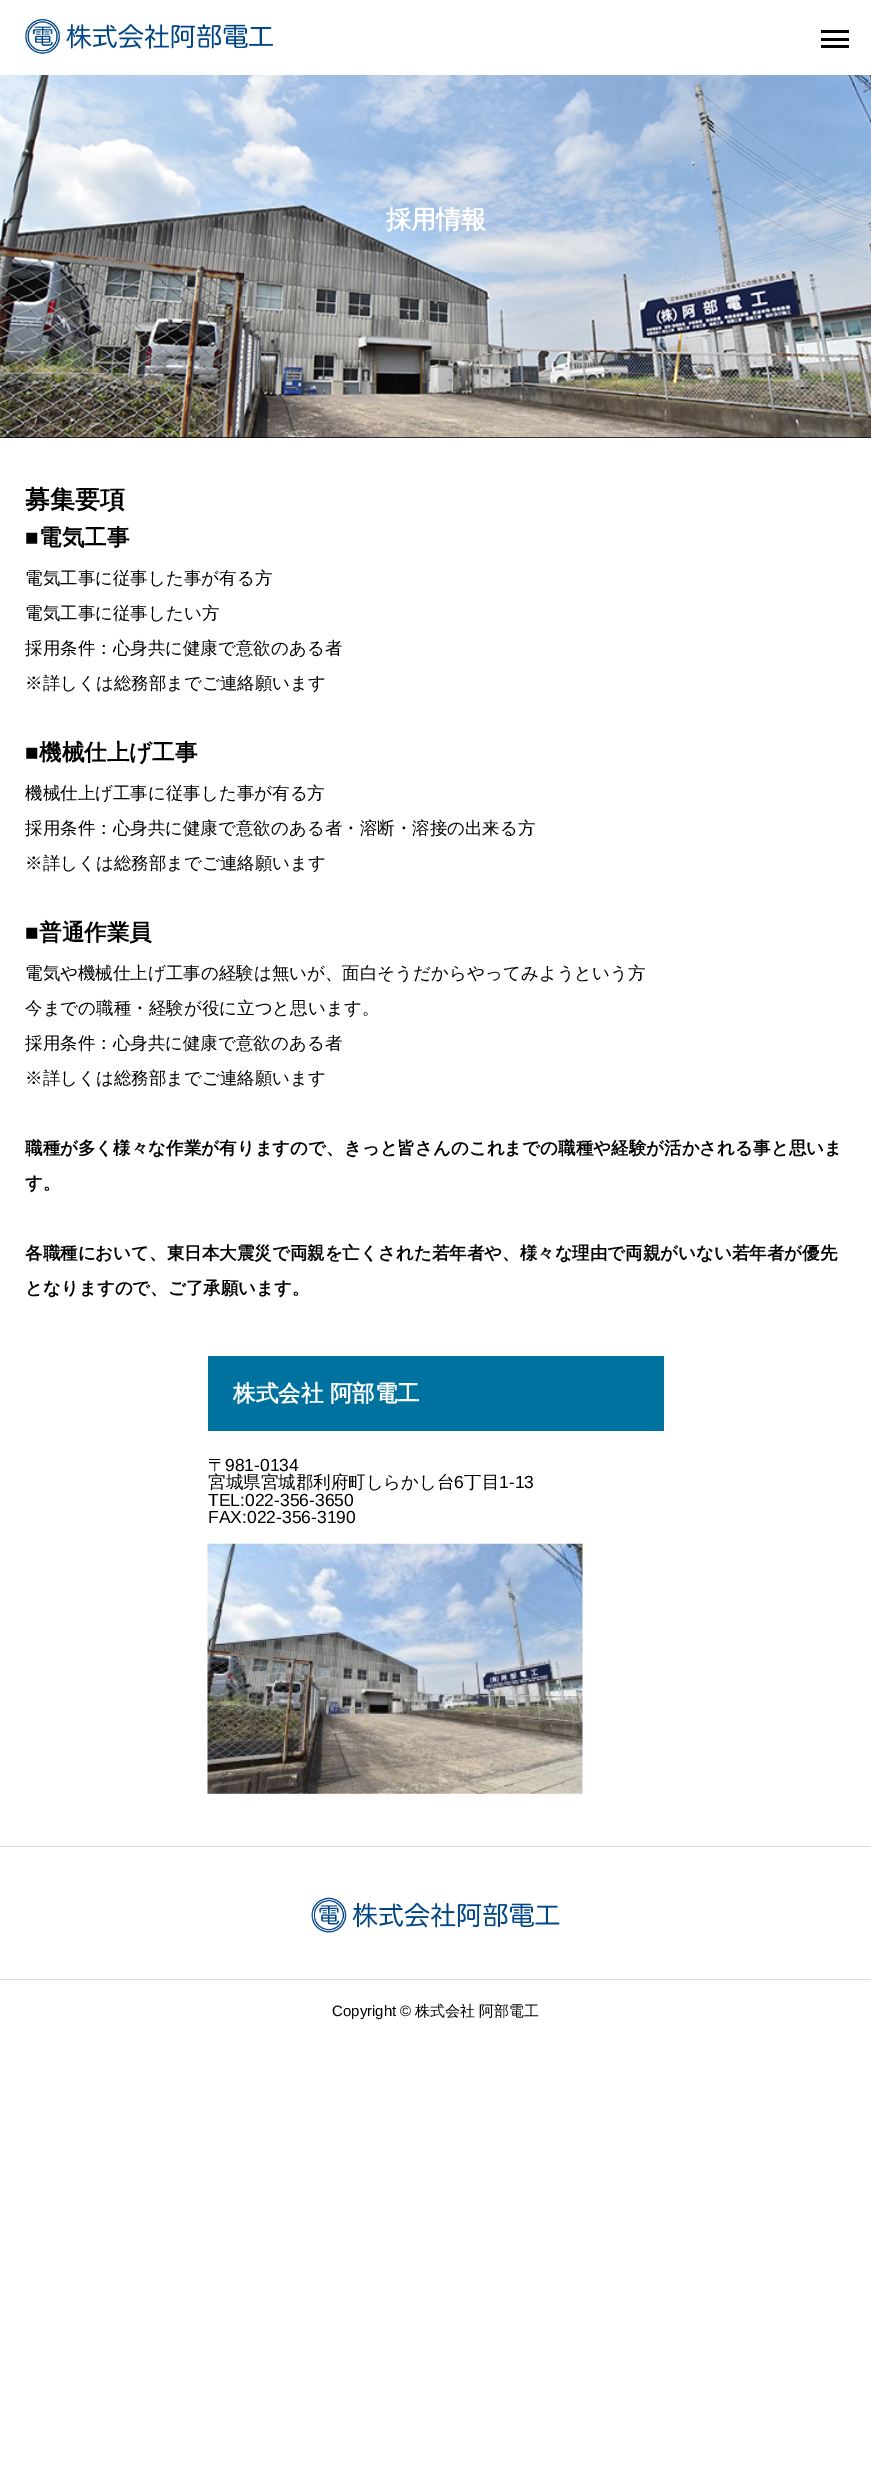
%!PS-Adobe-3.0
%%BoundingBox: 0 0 871 2469
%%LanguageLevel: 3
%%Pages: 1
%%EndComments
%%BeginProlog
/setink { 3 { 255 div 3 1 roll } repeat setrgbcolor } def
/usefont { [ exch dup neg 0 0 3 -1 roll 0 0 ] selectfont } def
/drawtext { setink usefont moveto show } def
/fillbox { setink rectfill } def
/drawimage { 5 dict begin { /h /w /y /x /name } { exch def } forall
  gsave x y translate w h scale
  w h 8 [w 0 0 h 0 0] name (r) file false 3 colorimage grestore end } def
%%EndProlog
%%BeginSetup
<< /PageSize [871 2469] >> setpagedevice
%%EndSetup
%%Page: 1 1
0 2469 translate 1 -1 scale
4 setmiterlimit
0 0 871 2469 255 255 255 fillbox
(assets/img1.rgb) 25 18 248 36 drawimage
821 30 28 3 0 0 0 fillbox
821 38 28 3 0 0 0 fillbox
821 45 28 3 0 0 0 fillbox
0 437 871 1 0 0 0 fillbox
(assets/img2.rgb) 0 75 871 363 drawimage
(採用情報) 386 228 /WenQuanYiZenHei-Bold 25 255 255 255 drawtext
(募集要項) 25 508 /WenQuanYiZenHei-Bold 25 0 0 0 drawtext
(■) 25 545 /LiberationSans-Bold 22.5 0 0 0 drawtext
(電気工事) 39 545 /WenQuanYiZenHei-Bold 22.5 0 0 0 drawtext
(電気工事に従事した事が有る方) 25 584 /WenQuanYiZenHei-Medium 17.5 0 0 0 drawtext
(電気工事に従事したい方) 25 619 /WenQuanYiZenHei-Medium 17.5 0 0 0 drawtext
(採用条件：心身共に健康で意欲のある者) 25 654 /WenQuanYiZenHei-Medium 17.5 0 0 0 drawtext
(※詳しくは総務部までご連絡願います) 25 689 /WenQuanYiZenHei-Medium 17.5 0 0 0 drawtext
(■) 25 760 /LiberationSans-Bold 22.5 0 0 0 drawtext
(機械仕上げ工事) 39 760 /WenQuanYiZenHei-Bold 22.5 0 0 0 drawtext
(機械仕上げ工事に従事した事が有る方) 25 799 /WenQuanYiZenHei-Medium 17.5 0 0 0 drawtext
(採用条件：心身共に健康で意欲のある者・溶断・溶接の出来る方) 25 834 /WenQuanYiZenHei-Medium 17.5 0 0 0 drawtext
(※詳しくは総務部までご連絡願います) 25 869 /WenQuanYiZenHei-Medium 17.5 0 0 0 drawtext
(■) 25 940 /LiberationSans-Bold 22.5 0 0 0 drawtext
(普通作業員) 39 940 /WenQuanYiZenHei-Bold 22.5 0 0 0 drawtext
(電気や機械仕上げ工事の経験は無いが、面白そうだからやってみようという方) 25 979 /WenQuanYiZenHei-Medium 17.5 0 0 0 drawtext
(今までの職種・経験が役に立つと思います。) 25 1014 /WenQuanYiZenHei-Medium 17.5 0 0 0 drawtext
(採用条件：心身共に健康で意欲のある者) 25 1049 /WenQuanYiZenHei-Medium 17.5 0 0 0 drawtext
(※詳しくは総務部までご連絡願います) 25 1084 /WenQuanYiZenHei-Medium 17.5 0 0 0 drawtext
(職種が多く様々な作業が有りますので、きっと皆さんのこれまでの職種や経験が活かされる事と思いま) 25 1154 /WenQuanYiZenHei-Bold 17.5 0 0 0 drawtext
(す。) 25 1189 /WenQuanYiZenHei-Bold 17.5 0 0 0 drawtext
(各職種において、東日本大震災で両親を亡くされた若年者や、様々な理由で両親がいない若年者が優先) 25 1259 /WenQuanYiZenHei-Bold 17.5 0 0 0 drawtext
(となりますので、ご了承願います。) 25 1294 /WenQuanYiZenHei-Bold 17.5 0 0 0 drawtext
208 1356 456 75 0 114 159 fillbox
(株式会社 阿部電工) 233 1401 /WenQuanYiZenHei-Bold 22.5 255 255 255 drawtext
(〒) 208 1471 /WenQuanYiZenHei-Medium 17.5 0 0 0 drawtext
(981-0134) 225 1471 /LiberationSans-Regular 17.5 0 0 0 drawtext
(宮城県宮城郡利府町しらかし台) 208 1488 /WenQuanYiZenHei-Medium 17.5 0 0 0 drawtext
(6) 454 1488 /LiberationSans-Regular 17.5 0 0 0 drawtext
(丁目) 464 1488 /WenQuanYiZenHei-Medium 17.5 0 0 0 drawtext
(1-13) 499 1488 /LiberationSans-Regular 17.5 0 0 0 drawtext
(TEL:022-356-3650) 208 1506 /LiberationSans-Regular 17.5 0 0 0 drawtext
(FAX:022-356-3190) 208 1523 /LiberationSans-Regular 17.5 0 0 0 drawtext
(assets/img3.rgb) 207 1543 376 251 drawimage
0 1846 871 1 221 221 221 fillbox
(assets/img4.rgb) 311 1897 249 36 drawimage
0 1979 871 1 221 221 221 fillbox
(Copyright ©) 332 2016 /LiberationSans-Regular 15 0 0 0 drawtext
(株式会社 阿部電工) 415 2016 /WenQuanYiZenHei-Medium 15 0 0 0 drawtext
showpage
%%EOF
